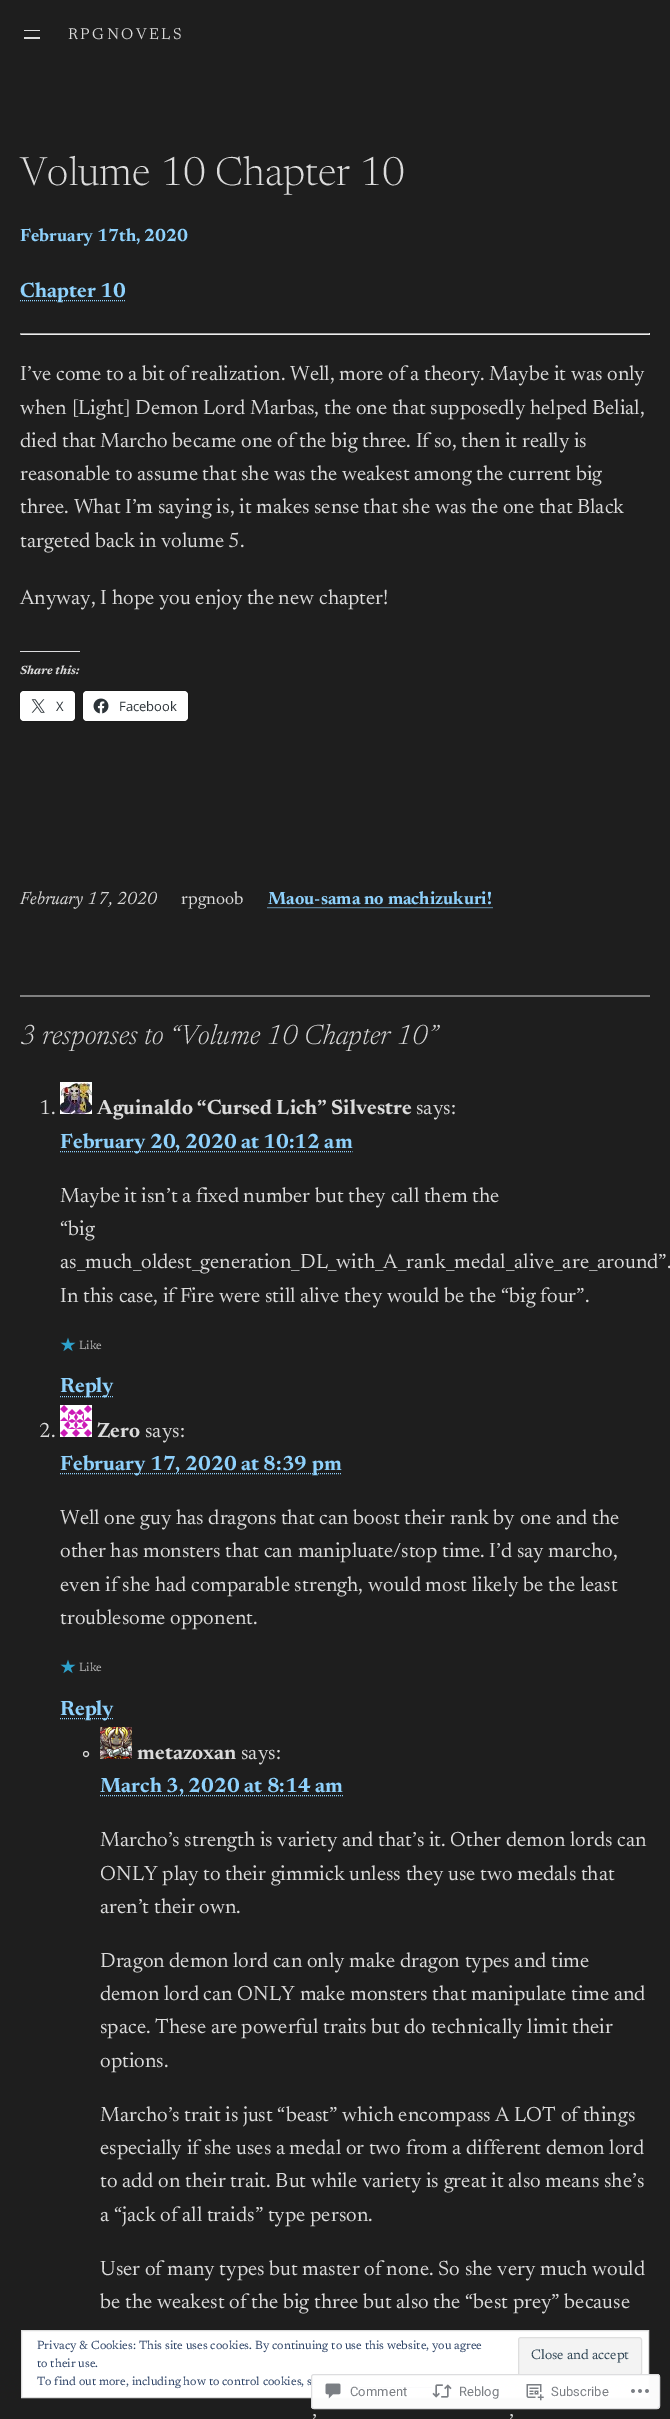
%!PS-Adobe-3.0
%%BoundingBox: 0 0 670 2419
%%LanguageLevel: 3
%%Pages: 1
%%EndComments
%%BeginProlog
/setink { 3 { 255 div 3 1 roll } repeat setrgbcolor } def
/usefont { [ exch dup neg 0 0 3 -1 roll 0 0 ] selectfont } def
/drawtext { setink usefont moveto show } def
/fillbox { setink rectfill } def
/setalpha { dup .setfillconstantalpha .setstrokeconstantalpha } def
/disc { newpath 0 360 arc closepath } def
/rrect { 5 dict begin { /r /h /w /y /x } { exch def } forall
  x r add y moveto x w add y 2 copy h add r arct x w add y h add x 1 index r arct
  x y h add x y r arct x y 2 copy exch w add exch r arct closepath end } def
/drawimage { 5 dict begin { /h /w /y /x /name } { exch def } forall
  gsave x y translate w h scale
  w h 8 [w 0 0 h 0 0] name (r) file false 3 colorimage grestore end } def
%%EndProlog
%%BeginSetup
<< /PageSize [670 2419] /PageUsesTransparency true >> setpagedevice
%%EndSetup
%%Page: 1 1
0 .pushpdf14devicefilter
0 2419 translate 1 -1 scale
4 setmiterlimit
0 0 670 2419 30 30 30 fillbox
24 30 16 1 219 219 219 fillbox
24 37 16 2 219 219 219 fillbox
/Newsreader-Regular 16 usefont
68 39 moveto 2.5 0 (RPGNOVELS) ashow
(Volume 10 Chapter 10) 20 185 /Newsreader-Light 40.25 219 219 219 drawtext
(February 17th, 2020) 20 241 /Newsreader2-Bold 18 142 209 252 drawtext
[1 1] 0 setdash
20 300.5 moveto 125.5 300.5 lineto stroke
(Chapter 10) 20 297 /Newsreader-Bold 20.8 142 209 252 drawtext
20 333 630 1 159 159 159 fillbox
649 333 1 2 238 238 238 fillbox
20 334 630 1 238 238 238 fillbox
20 333 1 2 159 159 159 fillbox
(I’ve come to a bit of realization. Well, more of a theory. Maybe it was only) 20 380 /Newsreader2-Regular 20.8 219 219 219 drawtext
(when [Light] Demon Lord Marbas, the one that supposedly helped Belial,) 20 414 /Newsreader2-Regular 20.8 219 219 219 drawtext
(died that Marcho became one of the big three. If so, then it really is) 20 447 /Newsreader2-Regular 20.8 219 219 219 drawtext
(reasonable to assume that she was the weakest among the current big) 20 480 /Newsreader2-Regular 20.8 219 219 219 drawtext
(three. What I’m saying is, it makes sense that she was the one that Black) 20 513 /Newsreader2-Regular 20.8 219 219 219 drawtext
(targeted back in volume 5.) 20 547 /Newsreader2-Regular 20.8 219 219 219 drawtext
(Anyway, I hope you enjoy the new chapter!) 20 604 /Newsreader2-Regular 20.8 219 219 219 drawtext
20 651 60 1 220 220 222 fillbox
(Share this:) 20 674 /Newsreader-BoldItalic 12 219 219 219 drawtext
26 26 26 setink
[] 0 setdash
19.5 690.5 56 31 4.5 rrect stroke
255 255 255 setink
20 691 55 30 4 rrect fill
(assets/img1.rgb) 31 699 14 14 drawimage
(X) 56 711 /OpenSans-Regular 13 44 51 56 drawtext
26 26 26 setink
82.5 690.5 106 31 4.5 rrect stroke
255 255 255 setink
83 691 105 30 4 rrect fill
(assets/img2.rgb) 93 698 16 16 drawimage
(Facebook) 119 711 /OpenSans-Regular 13 44 51 56 drawtext
(February 17, 2020) 20 904 /Newsreader-Italic 18 219 219 219 drawtext
(rpgnoob) 181 904 /Newsreader-Regular 18 219 219 219 drawtext
(Maou-sama no machizukuri!) 268 904 /Newsreader2-Bold 18 142 209 252 drawtext
[1 1] 0 setdash
267.5 907.5 moveto 492.5 907.5 lineto stroke
20 995 630 2 128 128 128 fillbox
(3 responses to “Volume 10 Chapter 10”) 20 1044 /Newsreader-LightItalic 28 219 219 219 drawtext
(1.) 39 1114 /Newsreader2-Regular 20.8 219 219 219 drawtext
(assets/img3.rgb) 60 1082 32 32 drawimage
(Aguinaldo “Cursed Lich” Silvestre) 97 1114 /Newsreader-Bold 20.8 219 219 219 drawtext
(says:) 416 1114 /Newsreader2-Regular 20.8 219 219 219 drawtext
142 209 252 setink
60 1151.5 moveto 352.5 1151.5 lineto stroke
(February 20, 2020 at 10:12 am) 60 1148 /Newsreader-Bold 20.8 142 209 252 drawtext
(Maybe it isn’t a fixed number but they call them the) 60 1202 /Newsreader2-Regular 20.8 219 219 219 drawtext
(“big) 60 1235 /Newsreader2-Regular 20.8 219 219 219 drawtext
(as_much_oldest_generation_DL_with_A_rank_medal_alive_are_around”.) 60 1268 /Newsreader2-Regular 20.8 219 219 219 drawtext
(In this case, if Fire were still alive they would be the “big four”.) 60 1302 /Newsreader2-Regular 20.8 219 219 219 drawtext
(assets/img4.rgb) 60 1337 16 15 drawimage
(Like) 79 1349 /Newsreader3-Regular 12 181 181 181 drawtext
142 209 252 setink
60 1396.5 moveto 114 1396.5 lineto stroke
(Reply) 60 1392 /Newsreader-Bold 20.8 142 209 252 drawtext
(2.) 39 1437 /Newsreader2-Regular 20.8 219 219 219 drawtext
(assets/img5.rgb) 60 1405 32 32 drawimage
(Zero) 97 1437 /Newsreader-Bold 20.8 219 219 219 drawtext
(says:) 145 1437 /Newsreader2-Regular 20.8 219 219 219 drawtext
142 209 252 setink
60 1473.5 moveto 341.5 1473.5 lineto stroke
(February 17, 2020 at 8:39 pm) 60 1470 /Newsreader-Bold 20.8 142 209 252 drawtext
(Well one guy has dragons that can boost their rank by one and the) 60 1524 /Newsreader2-Regular 20.8 219 219 219 drawtext
(other has monsters that can manipluate/stop time. I’d say marcho,) 60 1557 /Newsreader2-Regular 20.8 219 219 219 drawtext
(even if she had comparable strengh, would most likely be the least) 60 1591 /Newsreader2-Regular 20.8 219 219 219 drawtext
(troublesome opponent.) 60 1624 /Newsreader2-Regular 20.8 219 219 219 drawtext
(assets/img4.rgb) 60 1659 16 15 drawimage
(Like) 79 1671 /Newsreader3-Regular 12 181 181 181 drawtext
142 209 252 setink
60 1718.5 moveto 114 1718.5 lineto stroke
(Reply) 60 1715 /Newsreader-Bold 20.8 142 209 252 drawtext
219 219 219 setink
[] 0 setdash
86 1754 2.5 disc stroke
(assets/img6.rgb) 100 1727 32 32 drawimage
(metazoxan) 137 1759 /Newsreader-Bold 20.8 219 219 219 drawtext
(says:) 241 1759 /Newsreader2-Regular 20.8 219 219 219 drawtext
142 209 252 setink
[1 1] 0 setdash
100 1795.5 moveto 343 1795.5 lineto stroke
(March 3, 2020 at 8:14 am) 100 1792 /Newsreader-Bold 20.8 142 209 252 drawtext
(Marcho’s strength is variety and that’s it. Other demon lords can) 100 1846 /Newsreader2-Regular 20.8 219 219 219 drawtext
(ONLY play to their gimmick unless they use two medals that) 100 1880 /Newsreader2-Regular 20.8 219 219 219 drawtext
(aren’t their own.) 100 1913 /Newsreader2-Regular 20.8 219 219 219 drawtext
(Dragon demon lord can only make dragon types and time) 100 1967 /Newsreader2-Regular 20.8 219 219 219 drawtext
(demon lord can ONLY make monsters that manipulate time and) 100 2000 /Newsreader2-Regular 20.8 219 219 219 drawtext
(space. These are powerful traits but do technically limit their) 100 2033 /Newsreader2-Regular 20.8 219 219 219 drawtext
(options.) 100 2067 /Newsreader2-Regular 20.8 219 219 219 drawtext
(Marcho’s trait is just “beast” which encompass A LOT of things) 100 2121 /Newsreader2-Regular 20.8 219 219 219 drawtext
(especially if she uses a medal or two from a different demon lord) 100 2154 /Newsreader2-Regular 20.8 219 219 219 drawtext
(to add on their trait. But while variety is great it also means she’s) 100 2187 /Newsreader2-Regular 20.8 219 219 219 drawtext
(a “jack of all traids” type person.) 100 2221 /Newsreader2-Regular 20.8 219 219 219 drawtext
(User of many types but master of none. So she very much would) 100 2275 /Newsreader2-Regular 20.8 219 219 219 drawtext
(be the weakest of the big three but also the “best prey” because) 100 2308 /Newsreader2-Regular 20.8 219 219 219 drawtext
(’) 312 2428 /Newsreader2-Regular 20.8 219 219 219 drawtext
(’) 509 2428 /Newsreader2-Regular 20.8 219 219 219 drawtext
255 255 255 setink
21.5 2330.5 moveto 648.5 2330.5 lineto 648.5 2397.5 lineto 21.5 2397.5 lineto closepath gsave fill grestore
222 222 222 setink
[] 0 setdash
stroke
(Privacy & Cookies: This site uses cookies. By continuing to use this website, you agree) 37 2349 /Newsreader3-Regular 12 46 68 103 drawtext
(to their use.) 37 2367 /Newsreader3-Regular 12 46 68 103 drawtext
243 243 243 setink
518.5 2337.5 123 38 2.5 rrect gsave fill grestore
222 222 222 setink
stroke
(Close and accept) 531 2359 /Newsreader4-Regular 14 46 68 83 drawtext
(To find out more, including how to control cookies, s) 37 2385 /Newsreader3-Regular 12 46 68 103 drawtext
355 2387 77 1 46 68 103 fillbox
0.98 setalpha
255 255 255 setink
311 2374 349 35 3 rrect fill
220 220 222 setink
311.5 2374.5 348 34 2.5 rrect stroke
1 setalpha
(assets/img7.rgb) 325 2383 16 16 drawimage
(Comment) 350 2396 /Roboto-Regular 13 123 127 132 drawtext
(assets/img8.rgb) 432 2384 20 14 drawimage
(Reblog) 459 2396 /Roboto-Regular 13 123 127 132 drawtext
(assets/img9.rgb) 526 2384 18 17 drawimage
(Subscribe) 551 2396 /Roboto-Regular 13 123 127 132 drawtext
(assets/img10.rgb) 631 2389 18 4 drawimage
.poppdf14devicefilter showpage
%%EOF
